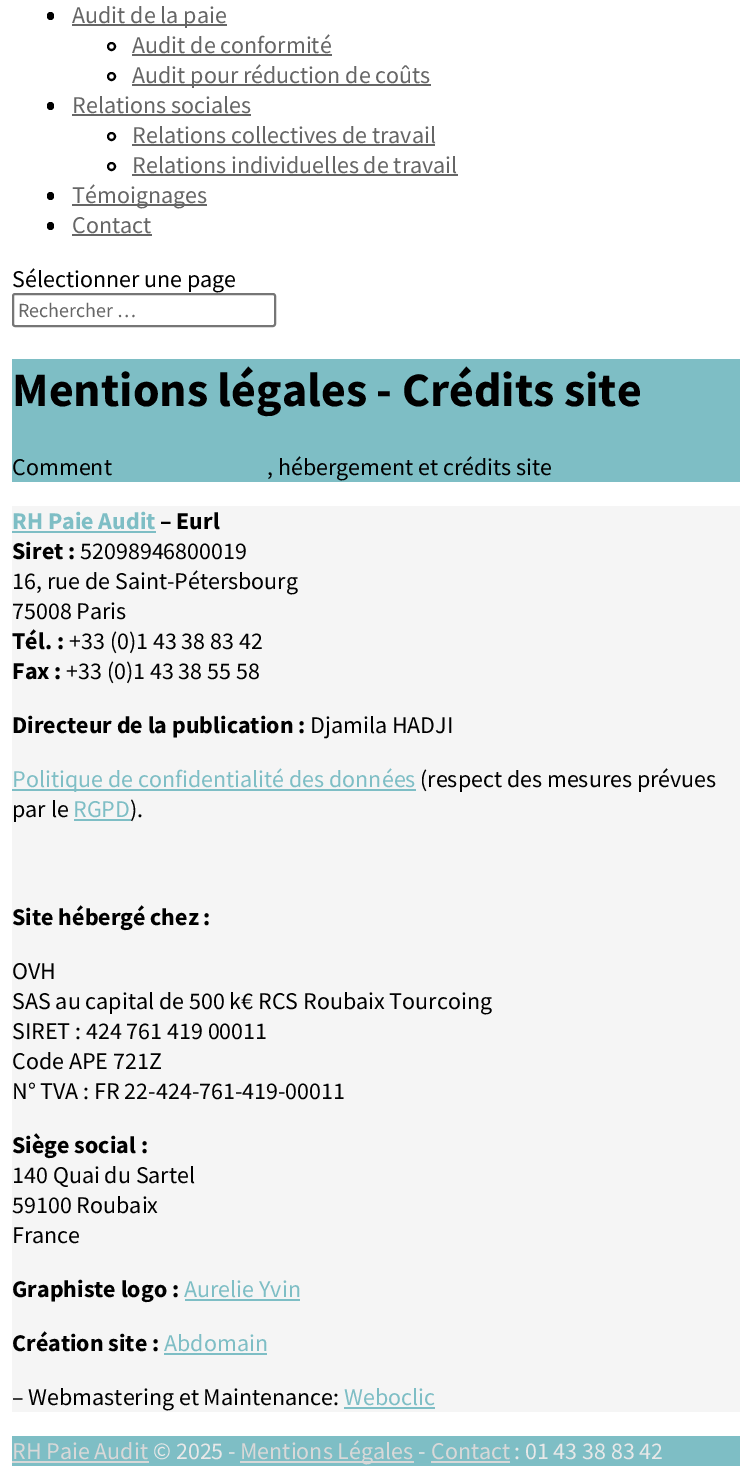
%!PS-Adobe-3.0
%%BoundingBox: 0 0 751 1474
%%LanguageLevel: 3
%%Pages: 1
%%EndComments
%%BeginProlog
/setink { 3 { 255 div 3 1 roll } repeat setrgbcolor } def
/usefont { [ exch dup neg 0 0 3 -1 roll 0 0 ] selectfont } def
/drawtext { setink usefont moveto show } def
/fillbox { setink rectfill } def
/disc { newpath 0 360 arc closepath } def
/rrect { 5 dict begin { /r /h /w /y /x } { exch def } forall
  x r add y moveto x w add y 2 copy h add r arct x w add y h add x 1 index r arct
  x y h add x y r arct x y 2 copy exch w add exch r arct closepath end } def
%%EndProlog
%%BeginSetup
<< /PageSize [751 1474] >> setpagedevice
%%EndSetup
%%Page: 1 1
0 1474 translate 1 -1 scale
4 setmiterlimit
0 0 751 1474 255 255 255 fillbox
0 0 0 setink
47 12 7 8 3.5 rrect fill
72 24 155 2 102 102 102 fillbox
(Audit de la paie) 72 23 /SourceSansPro-Regular 24 102 102 102 drawtext
0 0 0 setink
2 setlinewidth
111.5 46.5 3.5 disc stroke
(Audit de conformité) 132 53 /SourceSansPro-Regular 24 102 102 102 drawtext
132 54 200 2 102 102 102 fillbox
0 0 0 setink
111.5 76.5 3.5 disc stroke
132 84 299 2 102 102 102 fillbox
(Audit pour réduction de coûts) 132 83 /SourceSansPro-Regular 24 102 102 102 drawtext
0 0 0 setink
47 102 7 8 3.5 rrect fill
(Relations sociales) 72 113 /SourceSansPro-Regular 24 102 102 102 drawtext
72 114 179 2 102 102 102 fillbox
0 0 0 setink
111.5 136.5 3.5 disc stroke
(Relations collectives de travail) 132 143 /SourceSansPro-Regular 24 102 102 102 drawtext
132 144 303 2 102 102 102 fillbox
0 0 0 setink
111.5 166.5 3.5 disc stroke
(Relations individuelles de travail) 132 173 /SourceSansPro-Regular 24 102 102 102 drawtext
132 174 326 2 102 102 102 fillbox
0 0 0 setink
47 192 7 8 3.5 rrect fill
72 204 135 2 102 102 102 fillbox
(Témoignages) 72 203 /SourceSansPro-Regular 24 102 102 102 drawtext
0 0 0 setink
47 222 7 8 3.5 rrect fill
(Contact) 72 233 /SourceSansPro-Regular 24 102 102 102 drawtext
72 234 80 2 102 102 102 fillbox
(Sélectionner une page) 12 287 /SourceSansPro-Regular 24 0 0 0 drawtext
118 118 118 setink
13 294 262 32 2 rrect stroke
(Rechercher …) 18 317 /SourceSansPro-Regular 20 102 102 102 drawtext
12 359 728 123 126 190 197 fillbox
(Mentions légales - Crédits site) 12 406 /SourceSansPro-Bold 48 0 0 0 drawtext
(Comment) 12 475 /SourceSansPro-Regular 24 0 0 0 drawtext
(, hébergement et crédits site) 267 475 /SourceSansPro-Regular 24 0 0 0 drawtext
12 506 728 906 245 245 245 fillbox
(RH Paie Audit) 12 529 /SourceSansPro-Bold 24 126 190 197 drawtext
12 531 144 2 126 190 197 fillbox
(– Eurl) 160 529 /SourceSansPro-Bold 24 0 0 0 drawtext
(Siret :) 12 559 /SourceSansPro-Bold 24 0 0 0 drawtext
(52098946800019) 80 559 /SourceSansPro-Regular 24 0 0 0 drawtext
(16, rue de Saint-Pétersbourg) 12 589 /SourceSansPro-Regular 24 0 0 0 drawtext
(75008 Paris) 12 619 /SourceSansPro-Regular 24 0 0 0 drawtext
(Tél. :) 12 649 /SourceSansPro-Bold 24 0 0 0 drawtext
(+33 \(0\)1 43 38 83 42) 69 649 /SourceSansPro-Regular 24 0 0 0 drawtext
(Fax :) 12 679 /SourceSansPro-Bold 24 0 0 0 drawtext
(+33 \(0\)1 43 38 55 58) 66 679 /SourceSansPro-Regular 24 0 0 0 drawtext
(Directeur de la publication :) 12 733 /SourceSansPro-Bold 24 0 0 0 drawtext
(Djamila HADJI) 310 733 /SourceSansPro-Regular 24 0 0 0 drawtext
12 789 404 2 126 190 197 fillbox
(Politique de confidentialité des données) 12 787 /SourceSansPro-Regular 24 126 190 197 drawtext
(\(respect des mesures prévues) 420 787 /SourceSansPro-Regular 24 0 0 0 drawtext
(par le) 12 817 /SourceSansPro-Regular 24 0 0 0 drawtext
(RGPD) 73 817 /SourceSansPro-Regular 24 126 190 197 drawtext
74 819 57 2 126 190 197 fillbox
(\).) 130 817 /SourceSansPro-Regular 24 0 0 0 drawtext
(Site hébergé chez :) 12 925 /SourceSansPro-Bold 24 0 0 0 drawtext
(OVH) 12 979 /SourceSansPro-Regular 24 0 0 0 drawtext
(SAS au capital de 500 k€ RCS Roubaix Tourcoing) 12 1009 /SourceSansPro-Regular 24 0 0 0 drawtext
(SIRET : 424 761 419 00011) 12 1039 /SourceSansPro-Regular 24 0 0 0 drawtext
(Code APE 721Z) 12 1069 /SourceSansPro-Regular 24 0 0 0 drawtext
(N° TVA : FR 22-424-761-419-00011) 12 1099 /SourceSansPro-Regular 24 0 0 0 drawtext
(Siège social :) 12 1153 /SourceSansPro-Bold 24 0 0 0 drawtext
(140 Quai du Sartel) 12 1183 /SourceSansPro-Regular 24 0 0 0 drawtext
(59100 Roubaix) 12 1213 /SourceSansPro-Regular 24 0 0 0 drawtext
(France) 12 1243 /SourceSansPro-Regular 24 0 0 0 drawtext
(Graphiste logo :) 12 1297 /SourceSansPro-Bold 24 0 0 0 drawtext
(Aurelie Yvin) 184 1297 /SourceSansPro-Regular 24 126 190 197 drawtext
185 1299 115 2 126 190 197 fillbox
(Création site :) 12 1351 /SourceSansPro-Bold 24 0 0 0 drawtext
(Abdomain) 164 1351 /SourceSansPro-Regular 24 126 190 197 drawtext
164 1353 103 2 126 190 197 fillbox
(– Webmastering et Maintenance:) 12 1405 /SourceSansPro-Regular 24 0 0 0 drawtext
(Weboclic) 344 1405 /SourceSansPro-Regular 24 126 190 197 drawtext
344 1407 91 2 126 190 197 fillbox
12 1436 728 30 126 190 197 fillbox
(RH Paie Audit) 12 1459 /SourceSansPro-Regular 24 216 216 216 drawtext
12 1461 137 2 216 216 216 fillbox
(© 2025 -) 153 1459 /SourceSansPro-Regular 24 232 232 232 drawtext
240 1461 174 2 216 216 216 fillbox
(Mentions Légales) 240 1459 /SourceSansPro-Regular 24 216 216 216 drawtext
(-) 418 1459 /SourceSansPro-Regular 24 232 232 232 drawtext
(Contact) 431 1459 /SourceSansPro-Regular 24 216 216 216 drawtext
431 1461 79 2 216 216 216 fillbox
(: 01 43 38 83 42) 514 1459 /SourceSansPro-Regular 24 232 232 232 drawtext
showpage
%%EOF
